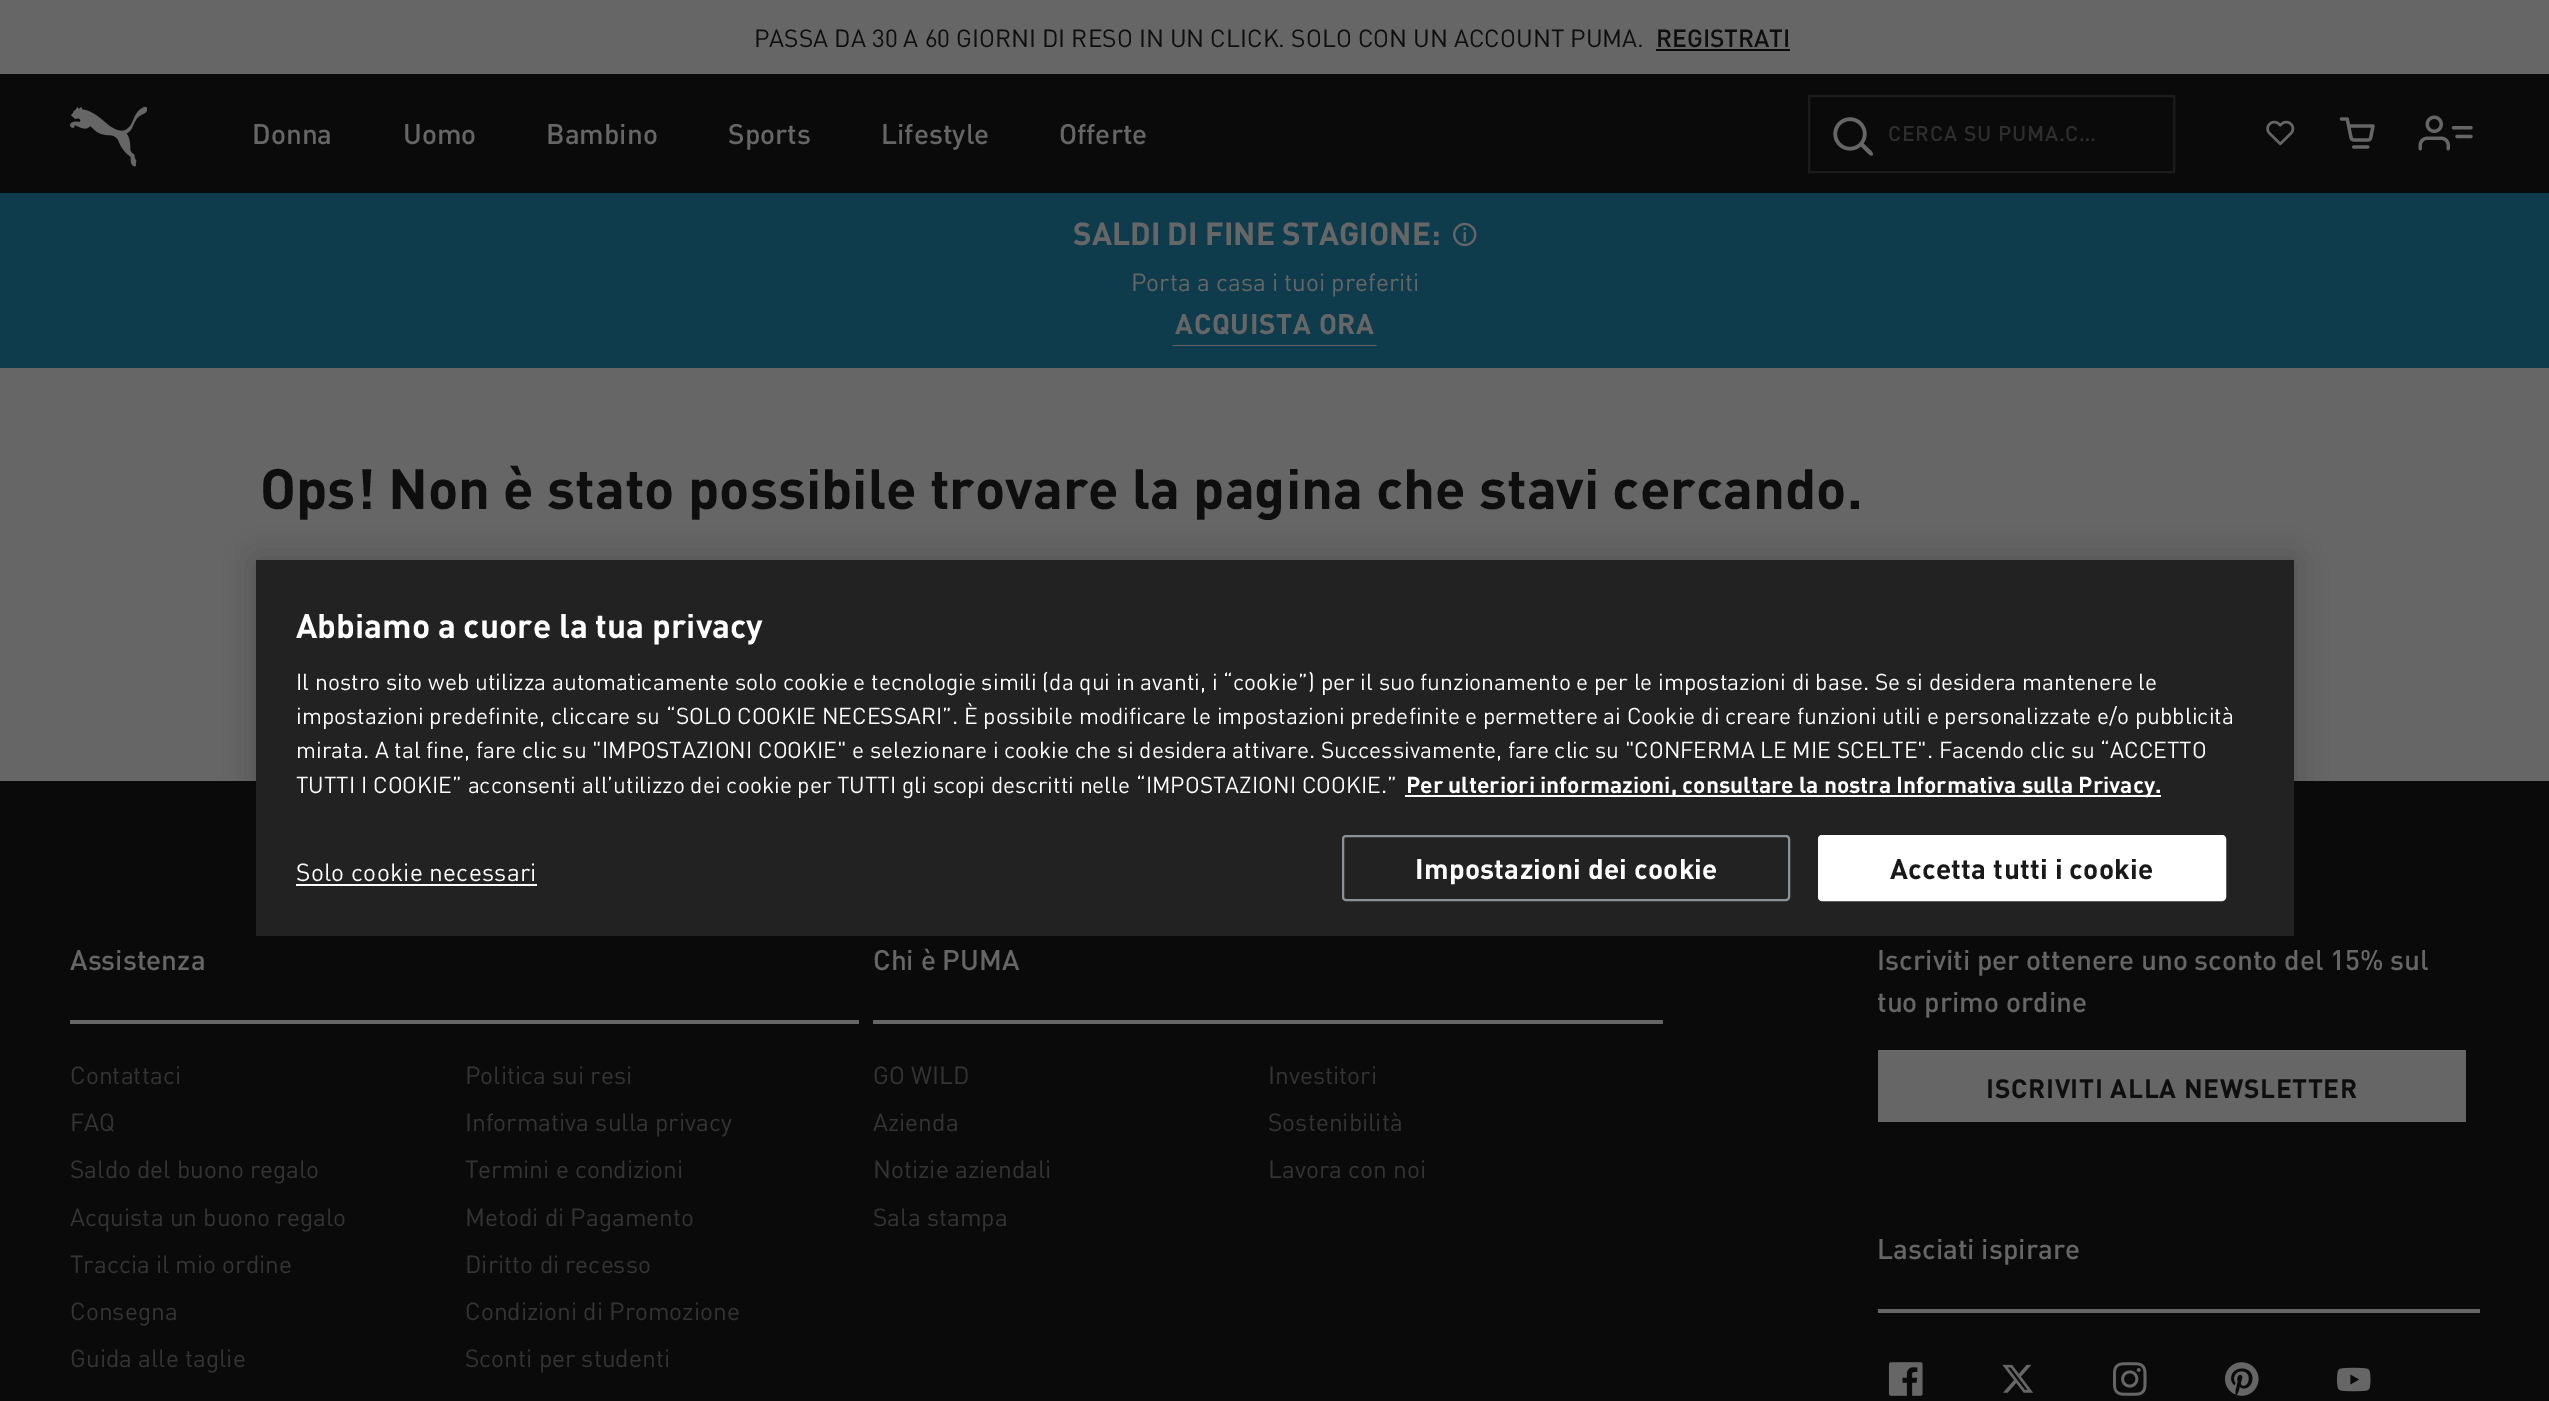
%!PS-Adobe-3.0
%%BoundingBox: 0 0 2549 1401
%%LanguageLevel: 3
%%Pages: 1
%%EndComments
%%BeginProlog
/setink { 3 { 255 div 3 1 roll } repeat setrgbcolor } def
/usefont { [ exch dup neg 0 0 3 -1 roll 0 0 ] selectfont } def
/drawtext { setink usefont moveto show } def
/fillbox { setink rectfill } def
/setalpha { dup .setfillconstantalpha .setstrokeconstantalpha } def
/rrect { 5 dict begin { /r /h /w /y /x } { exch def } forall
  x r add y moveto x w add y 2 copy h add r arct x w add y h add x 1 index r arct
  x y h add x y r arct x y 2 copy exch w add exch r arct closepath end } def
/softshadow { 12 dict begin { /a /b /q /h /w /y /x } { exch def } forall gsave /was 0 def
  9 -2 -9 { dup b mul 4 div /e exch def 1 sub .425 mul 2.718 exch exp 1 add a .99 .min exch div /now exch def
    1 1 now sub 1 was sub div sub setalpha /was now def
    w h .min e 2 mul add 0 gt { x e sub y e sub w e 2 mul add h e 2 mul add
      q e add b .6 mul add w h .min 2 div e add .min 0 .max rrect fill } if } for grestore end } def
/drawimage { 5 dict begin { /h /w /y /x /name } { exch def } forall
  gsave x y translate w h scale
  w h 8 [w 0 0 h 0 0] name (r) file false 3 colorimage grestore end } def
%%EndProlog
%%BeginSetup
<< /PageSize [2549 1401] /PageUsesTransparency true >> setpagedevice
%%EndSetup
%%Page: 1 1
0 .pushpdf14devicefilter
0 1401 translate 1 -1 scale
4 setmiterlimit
0 0 2549 1401 102 102 102 fillbox
(PASSA DA 30 A 60 GIORNI DI RESO IN UN CLICK. SOLO CON UN ACCOUNT PUMA.) 754 47 /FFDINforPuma-Regular 24.5 14 14 14 drawtext
(REGISTRATI) 1656 47 /FFDINforPuma-Medium 24.5 14 14 14 drawtext
1656 49 134 2 10 10 10 fillbox
0 74 2549 119 10 10 10 fillbox
(assets/img1.rgb) 70 106 77 61 drawimage
(Donna) 252 144 /FFDINforPuma-Medium 28 102 102 102 drawtext
(Uomo) 403 144 /FFDINforPuma-Medium 28 102 102 102 drawtext
(Bambino) 546 144 /FFDINforPuma-Medium 28 102 102 102 drawtext
(Sports) 728 144 /FFDINforPuma-Medium 28 102 102 102 drawtext
(Lifestyle) 881 144 /FFDINforPuma-Medium 28 102 102 102 drawtext
(Offerte) 1059 144 /FFDINforPuma-Medium 28 102 102 102 drawtext
28 28 28 setink
2 setlinewidth
1809 96 365 76 rectstroke
(assets/img2.rgb) 1833 117 41 39 drawimage
/FFDINforPuma-Medium 21 usefont
46 46 46 setink
1888 141 moveto 0.8 0 (CERCA SU PUMA.C…) ashow
(assets/img3.rgb) 2266 120 29 26 drawimage
(assets/img4.rgb) 2339 117 36 32 drawimage
(assets/img5.rgb) 2418 115 55 36 drawimage
0 193 2549 175 15 60 76 fillbox
(SALDI DI FINE STAGIONE:) 1073 245 /FFDINforPuma-Bold 31.5 102 102 102 drawtext
(assets/img6.rgb) 1453 222 24 25 drawimage
(Porta a casa i tuoi preferiti) 1131 291 /FFDINforPuma-Regular 24.5 102 102 102 drawtext
1377 346 moveto 1172 346 lineto 1174 345 lineto 1376 345 lineto closepath fill
/FFDINforPuma-Bold 28 usefont
1175 334 moveto 0.7 0 (ACQUISTA ORA) ashow
(Ops! Non è stato possibile trovare la pagina che stavi cercando.) 260 509 /FFDINforPuma-Bold 56 14 14 14 drawtext
0 781 2549 620 10 10 10 fillbox
0 0 0 setink
256 560 2038 376 0 16 0.2 softshadow
256 560 2038 376 34 34 34 fillbox
(Abbiamo a cuore la tua privacy) 296 638 /FFDINforPuma-Bold 33.6 255 255 255 drawtext
(Il nostro sito web utilizza automaticamente solo cookie e tecnologie simili \(da qui in avanti, i “cookie”\) per il suo funzionamento e per le impostazioni di base. Se si desidera mantenere le) 296 690 /FFDINforPuma-Regular 22.75 255 255 255 drawtext
(impostazioni predefinite, cliccare su “SOLO COOKIE NECESSARI”. È possibile modificare le impostazioni predefinite e permettere ai Cookie di creare funzioni utili e personalizzate e/o pubblicità) 296 724 /FFDINforPuma-Regular 22.75 255 255 255 drawtext
(mirata. A tal fine, fare clic su "IMPOSTAZIONI COOKIE" e selezionare i cookie che si desidera attivare. Successivamente, fare clic su "CONFERMA LE MIE SCELTE". Facendo clic su “ACCETTO) 296 758 /FFDINforPuma-Regular 22.75 255 255 255 drawtext
(TUTTI I COOKIE” acconsenti all’utilizzo dei cookie per TUTTI gli scopi descritti nelle “IMPOSTAZIONI COOKIE.”) 296 793 /FFDINforPuma-Regular 22.75 255 255 255 drawtext
1405 795 756 2 255 255 255 fillbox
(Per ulteriori informazioni, consultare la nostra Informativa sulla Privacy.) 1406 793 /FFDINforPuma-Bold 22.75 255 255 255 drawtext
/FFDINforPuma-Regular 24.5 usefont
296 881 moveto 0.25 0 (Solo cookie necessari) ashow
296 884 241 2 255 255 255 fillbox
140 145 152 setink
1343 836 446 64 3 rrect stroke
/FFDINforPuma-Bold 28 usefont
255 255 255 setink
1415 879 moveto 0.25 0 (Impostazioni dei cookie) ashow
1819 836 406 64 3 rrect gsave fill grestore
stroke
25 25 25 setink
1890 879 moveto 0.25 0 (Accetta tutti i cookie) ashow
70 1020 789 4 102 102 102 fillbox
(Assistenza) 70 970 /FFDINforPuma-Medium 28 102 102 102 drawtext
(Contattaci) 70 1084 /FFDINforPuma-Regular 24.5 52 52 52 drawtext
(FAQ) 70 1131 /FFDINforPuma-Regular 24.5 52 52 52 drawtext
(Saldo del buono regalo) 70 1178 /FFDINforPuma-Regular 24.5 52 52 52 drawtext
(Acquista un buono regalo) 70 1226 /FFDINforPuma-Regular 24.5 52 52 52 drawtext
(Traccia il mio ordine) 70 1273 /FFDINforPuma-Regular 24.5 52 52 52 drawtext
(Consegna) 70 1320 /FFDINforPuma-Regular 24.5 52 52 52 drawtext
(Guida alle taglie) 70 1367 /FFDINforPuma-Regular 24.5 52 52 52 drawtext
(Politica sui resi) 465 1084 /FFDINforPuma-Regular 24.5 52 52 52 drawtext
(Informativa sulla privacy) 465 1131 /FFDINforPuma-Regular 24.5 52 52 52 drawtext
(Termini e condizioni) 465 1178 /FFDINforPuma-Regular 24.5 52 52 52 drawtext
(Metodi di Pagamento) 465 1226 /FFDINforPuma-Regular 24.5 52 52 52 drawtext
(Diritto di recesso) 465 1273 /FFDINforPuma-Regular 24.5 52 52 52 drawtext
(Condizioni di Promozione) 465 1320 /FFDINforPuma-Regular 24.5 52 52 52 drawtext
(Sconti per studenti) 465 1367 /FFDINforPuma-Regular 24.5 52 52 52 drawtext
873 1020 790 4 102 102 102 fillbox
(Chi è PUMA) 873 970 /FFDINforPuma-Medium 28 102 102 102 drawtext
(GO WILD) 873 1084 /FFDINforPuma-Regular 24.5 52 52 52 drawtext
(Azienda) 873 1131 /FFDINforPuma-Regular 24.5 52 52 52 drawtext
(Notizie aziendali) 873 1178 /FFDINforPuma-Regular 24.5 52 52 52 drawtext
(Sala stampa) 873 1226 /FFDINforPuma-Regular 24.5 52 52 52 drawtext
(Investitori) 1268 1084 /FFDINforPuma-Regular 24.5 52 52 52 drawtext
(Sostenibilità) 1268 1131 /FFDINforPuma-Regular 24.5 52 52 52 drawtext
(Lavora con noi) 1268 1178 /FFDINforPuma-Regular 24.5 52 52 52 drawtext
(Iscriviti per ottenere uno sconto del 15% sul) 1877 970 /FFDINforPuma-Medium 28 102 102 102 drawtext
(tuo primo ordine) 1877 1012 /FFDINforPuma-Medium 28 102 102 102 drawtext
1878 1050 588 72 102 102 102 fillbox
/FFDINforPuma-Bold 26.25 usefont
14 14 14 setink
1986 1098 moveto 0.7 0 (ISCRIVITI ALLA NEWSLETTER) ashow
1878 1309 602 4 102 102 102 fillbox
(Lasciati ispirare) 1877 1259 /FFDINforPuma-Medium 28 102 102 102 drawtext
(assets/img7.rgb) 1888 1362 35 34 drawimage
(assets/img8.rgb) 2002 1364 31 29 drawimage
(assets/img9.rgb) 2112 1362 35 34 drawimage
(assets/img10.rgb) 2224 1362 35 34 drawimage
(assets/img11.rgb) 2336 1367 35 25 drawimage
.poppdf14devicefilter showpage
%%EOF
